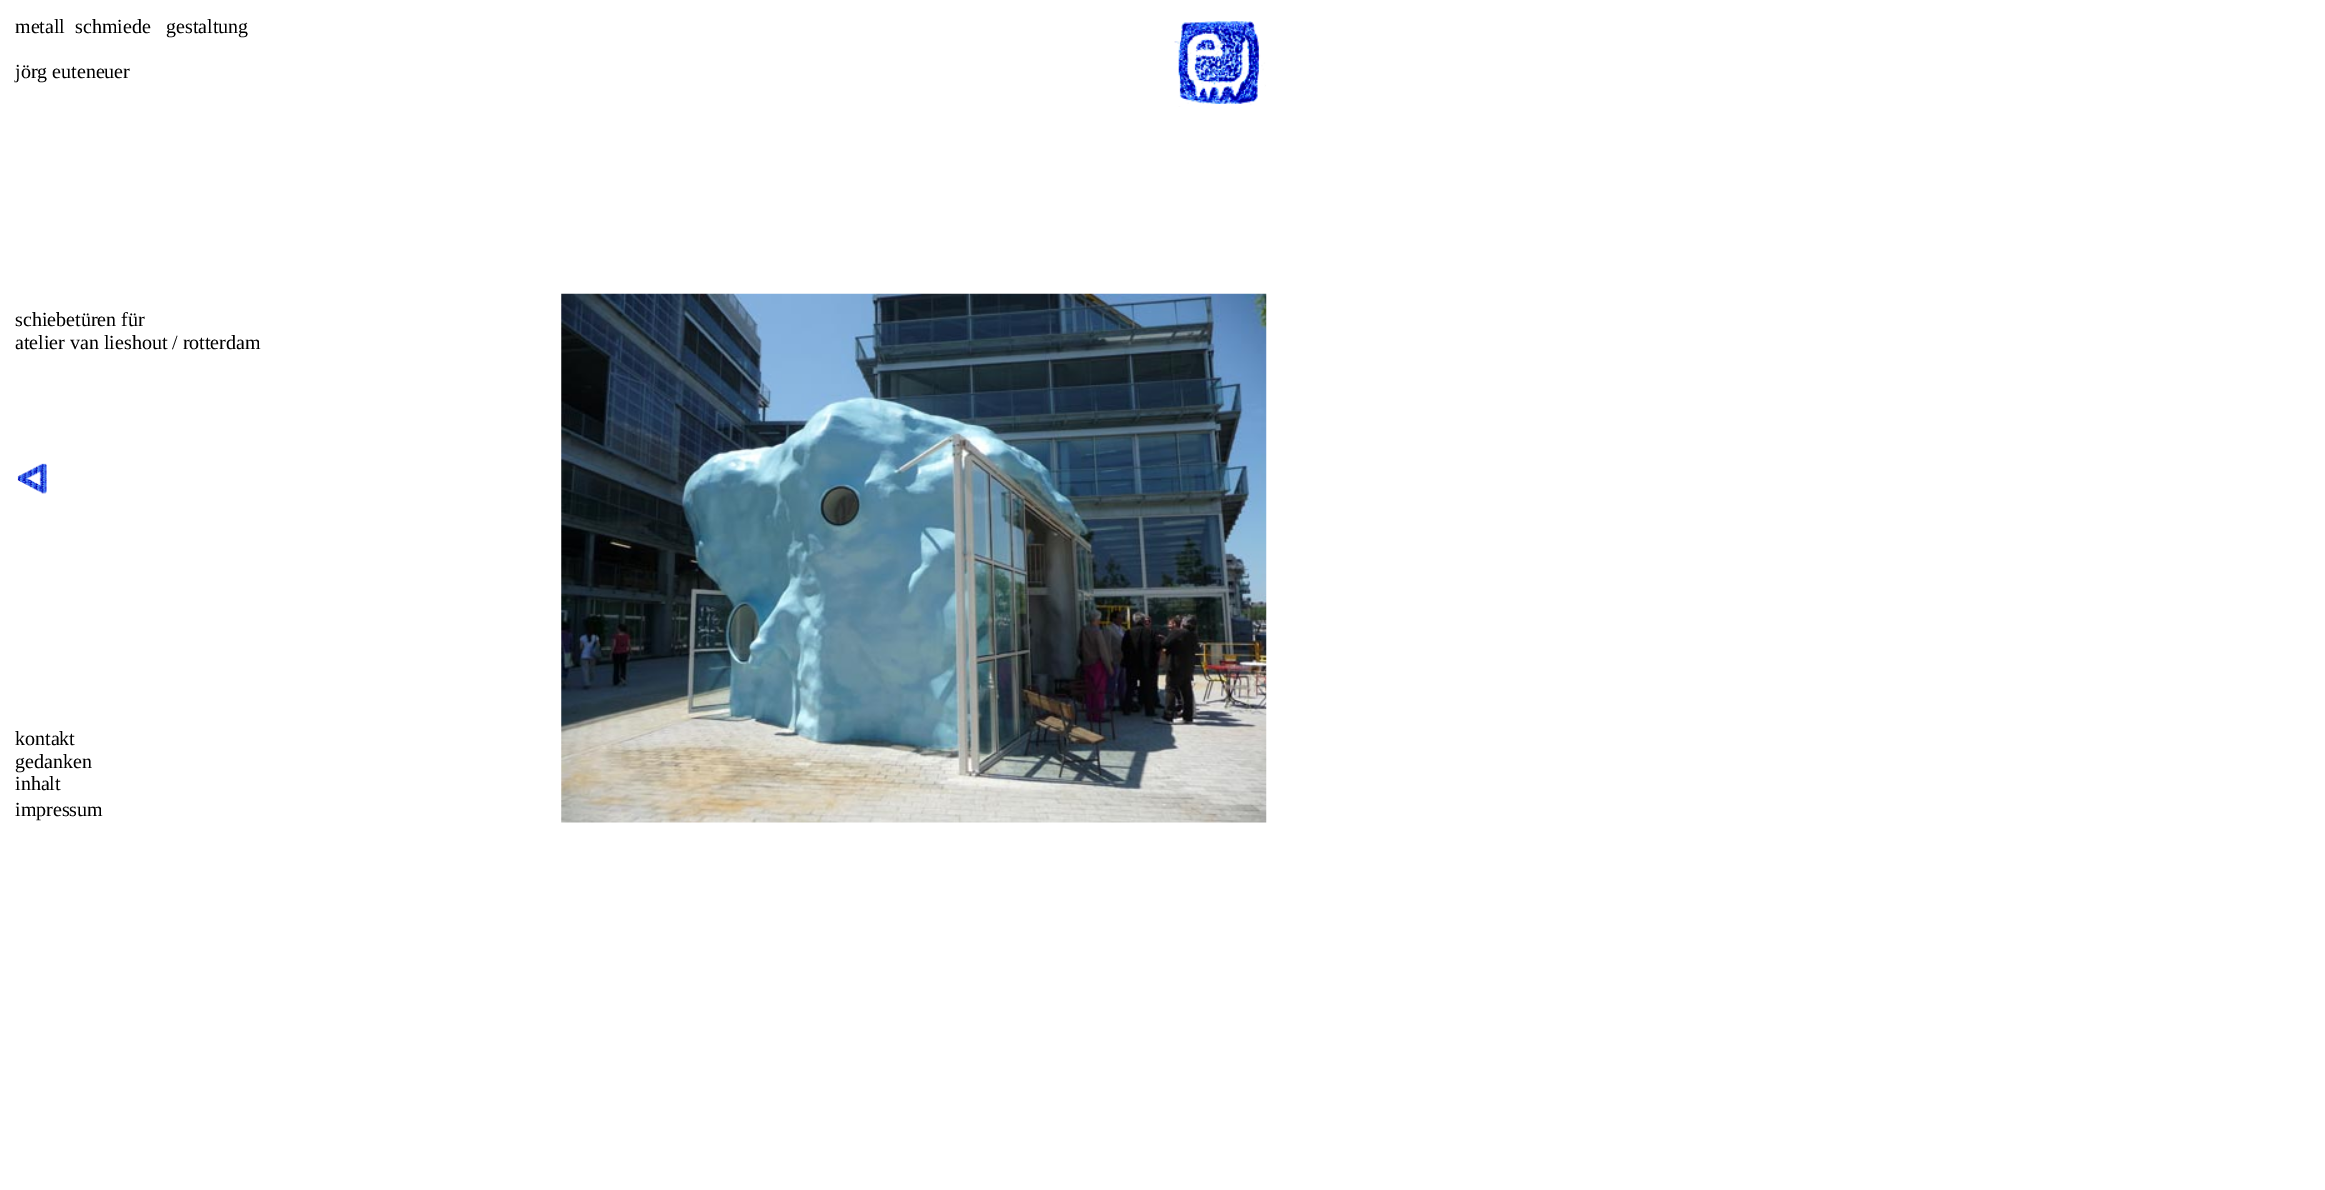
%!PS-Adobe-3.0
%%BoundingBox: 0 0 2325 1190
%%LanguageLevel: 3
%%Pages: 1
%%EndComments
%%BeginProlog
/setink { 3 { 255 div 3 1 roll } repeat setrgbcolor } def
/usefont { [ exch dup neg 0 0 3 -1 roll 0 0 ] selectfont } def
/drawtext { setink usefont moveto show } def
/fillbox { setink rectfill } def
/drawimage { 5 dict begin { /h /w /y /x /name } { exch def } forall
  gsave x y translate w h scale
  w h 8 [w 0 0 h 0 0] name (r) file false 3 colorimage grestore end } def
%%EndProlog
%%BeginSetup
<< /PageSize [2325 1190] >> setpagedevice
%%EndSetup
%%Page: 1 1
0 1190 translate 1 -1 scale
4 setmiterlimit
0 0 2325 1190 255 255 255 fillbox
(metall) 15 33 /LiberationSerif-Regular 20 0 0 0 drawtext
(schmiede) 75 33 /LiberationSerif-Regular 20 0 0 0 drawtext
(gestaltung) 166 33 /LiberationSerif-Regular 20 0 0 0 drawtext
(jörg euteneuer) 15 78 /LiberationSerif-Regular 20 0 0 0 drawtext
(assets/img1.rgb) 1174 20 92 87 drawimage
(schiebetüren für) 15 326 /LiberationSerif-Regular 20 0 0 0 drawtext
(atelier van lieshout / rotterdam) 15 349 /LiberationSerif-Regular 20 0 0 0 drawtext
(assets/img2.rgb) 561 293 706 530 drawimage
(assets/img3.rgb) 17 463 30 31 drawimage
(kontakt) 15 745 /LiberationSerif-Regular 20 0 0 0 drawtext
(gedanken) 15 768 /LiberationSerif-Regular 20 0 0 0 drawtext
(inhalt) 15 790 /LiberationSerif-Regular 20 0 0 0 drawtext
(impressum) 15 816 /LiberationSerif-Regular 20 0 0 0 drawtext
showpage
%%EOF
